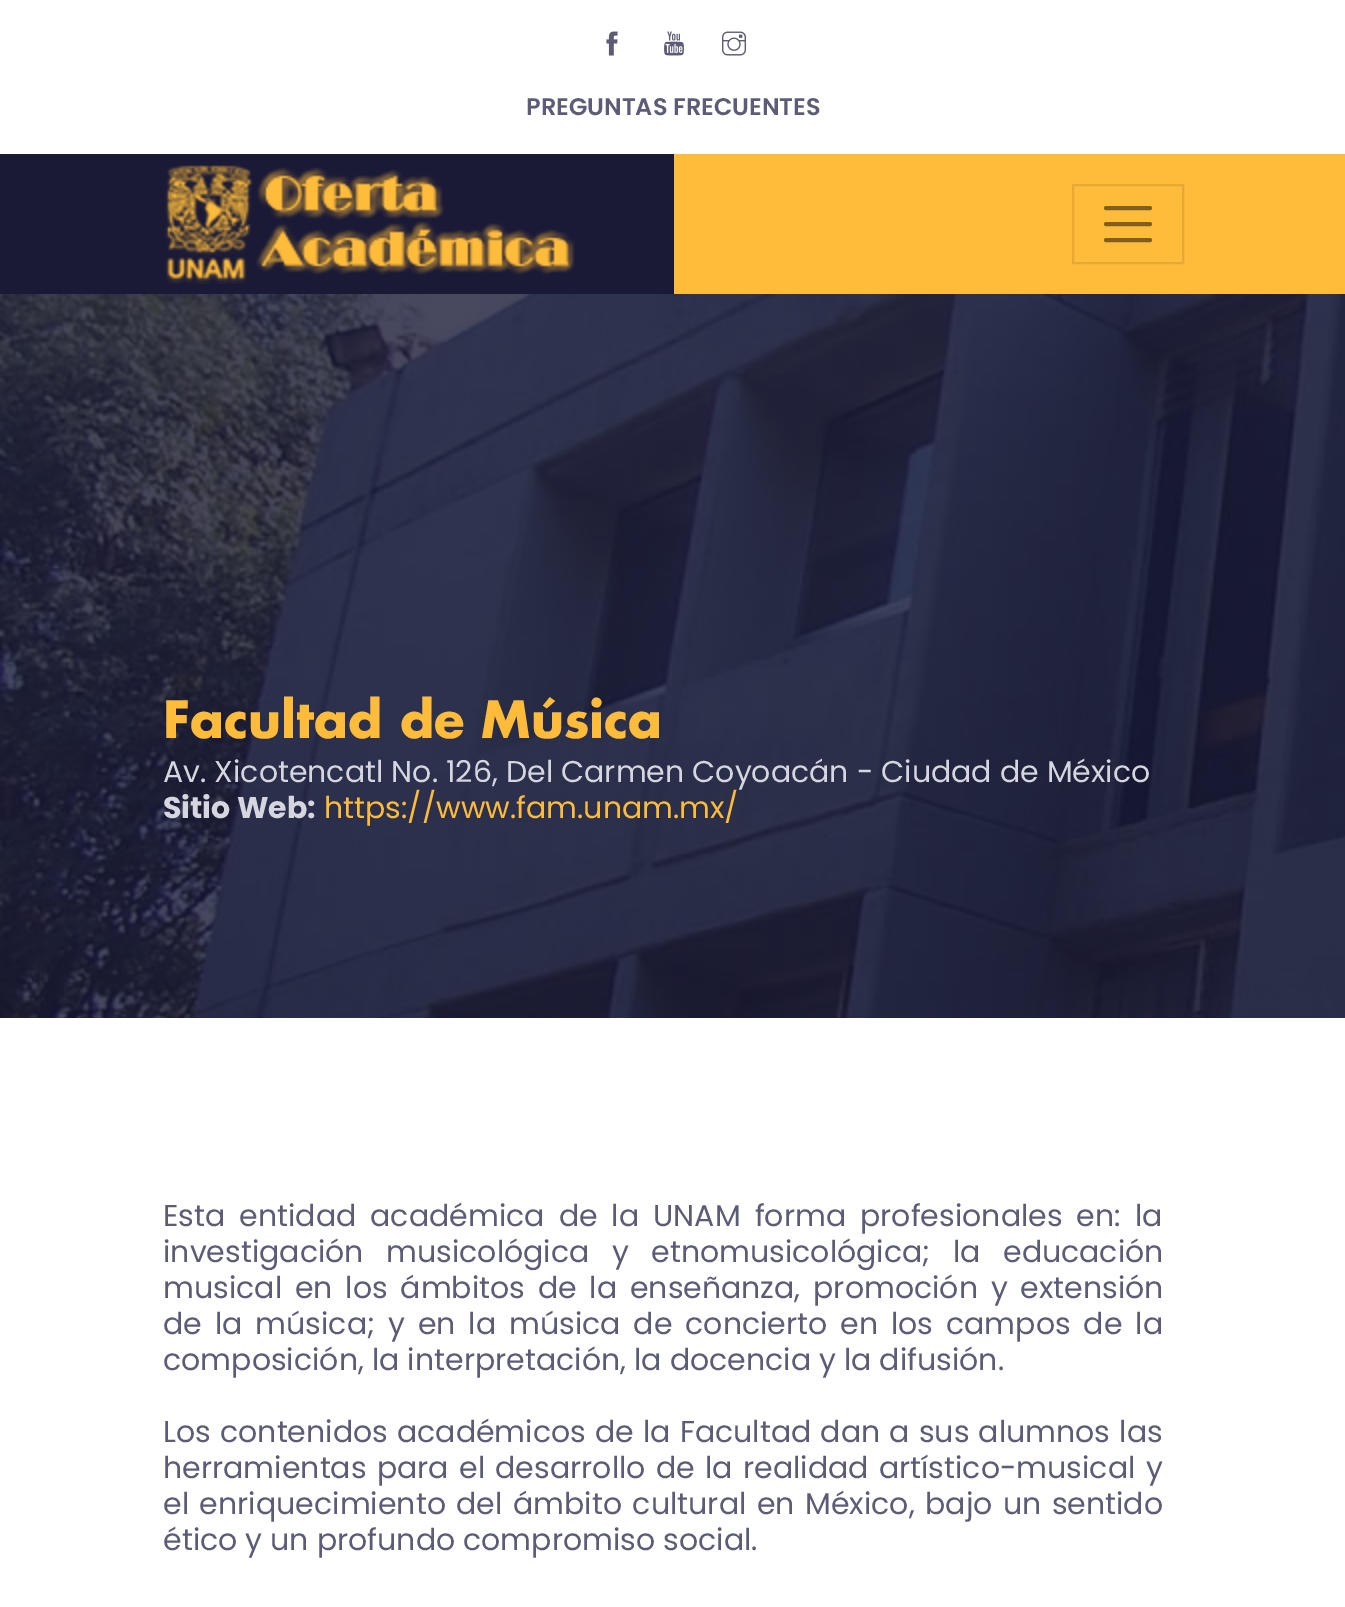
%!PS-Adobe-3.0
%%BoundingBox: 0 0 1345 1607
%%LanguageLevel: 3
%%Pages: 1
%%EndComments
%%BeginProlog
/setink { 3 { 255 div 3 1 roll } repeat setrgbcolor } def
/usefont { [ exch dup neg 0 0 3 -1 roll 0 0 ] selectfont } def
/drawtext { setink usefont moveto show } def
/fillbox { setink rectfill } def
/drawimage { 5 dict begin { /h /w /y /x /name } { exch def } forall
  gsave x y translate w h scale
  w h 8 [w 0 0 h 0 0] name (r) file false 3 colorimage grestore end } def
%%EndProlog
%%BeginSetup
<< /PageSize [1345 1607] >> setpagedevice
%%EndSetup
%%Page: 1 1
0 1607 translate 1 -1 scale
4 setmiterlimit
0 0 1345 1607 255 255 255 fillbox
0 154 674 140 26 26 55 fillbox
(assets/img1.rgb) 606 31 12 25 drawimage
(assets/img2.rgb) 664 31 20 25 drawimage
(assets/img3.rgb) 722 31 24 25 drawimage
(PREGUNTAS FRECUENTES) 526 115 /Poppins-SemiBold 24 92 92 119 drawtext
674 154 671 140 255 188 59 fillbox
(assets/img4.rgb) 165 165 410 119 drawimage
230 169 53 setink
2 setlinewidth
1073 185 110 78 rectstroke
128 94 30 setink
4 setlinewidth
1 setlinecap
1106 208 moveto 1150 208 lineto 1106 224 moveto 1150 224 lineto 1106 240 moveto 1150 240 lineto stroke
(assets/img5.rgb) 0 294 1345 724 drawimage
(Facultad de Música) 163 738 /Futura-Bold 50 255 188 59 drawtext
(Av. Xicotencatl No. 126, Del Carmen Coyoacán - Ciudad de México) 163 782 /Poppins-Regular 30 214 214 224 drawtext
(Sitio Web:) 163 818 /Poppins-Bold 30 214 214 224 drawtext
(https://www.fam.unam.mx/) 324 818 /Poppins-Regular 30 255 188 59 drawtext
92 92 119 setink
163 1226 moveto 6 0 32 (Esta entidad académica de la UNAM forma profesionales en: la) widthshow
163 1262 moveto 14.5 0 32 (investigación musicológica y etnomusicológica; la educación) widthshow
163 1298 moveto 4.75 0 32 (musical en los ámbitos de la enseñanza, promoción y extensión) widthshow
163 1334 moveto 4.9 0 32 (de la música; y en la música de concierto en los campos de la) widthshow
(composición, la interpretación, la docencia y la difusión.) 163 1370 /Poppins-Regular 30 92 92 119 drawtext
163 1442 moveto 1.1 0 32 (Los contenidos académicos de la Facultad dan a sus alumnos las) widthshow
163 1478 moveto 2.25 0 32 (herramientas para el desarrollo de la realidad artístico-musical y) widthshow
163 1514 moveto 2.5 0 32 (el enriquecimiento del ámbito cultural en México, bajo un sentido) widthshow
(ético y un profundo compromiso social.) 163 1550 /Poppins-Regular 30 92 92 119 drawtext
showpage
%%EOF
